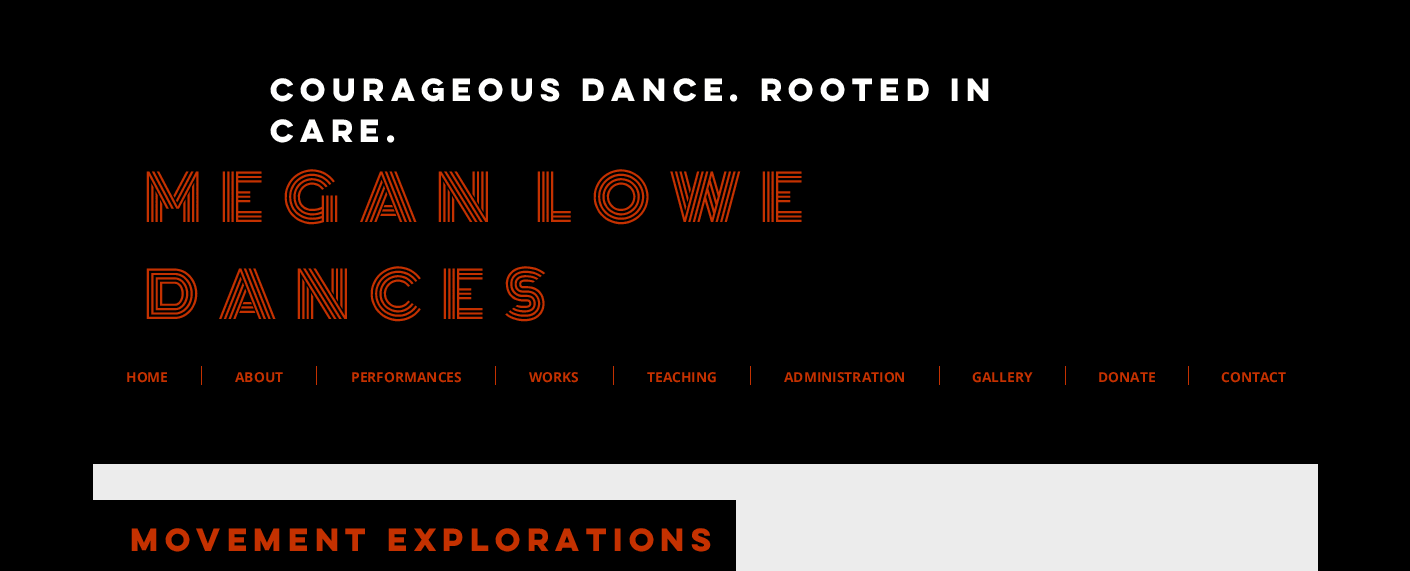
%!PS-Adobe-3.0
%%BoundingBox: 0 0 1410 571
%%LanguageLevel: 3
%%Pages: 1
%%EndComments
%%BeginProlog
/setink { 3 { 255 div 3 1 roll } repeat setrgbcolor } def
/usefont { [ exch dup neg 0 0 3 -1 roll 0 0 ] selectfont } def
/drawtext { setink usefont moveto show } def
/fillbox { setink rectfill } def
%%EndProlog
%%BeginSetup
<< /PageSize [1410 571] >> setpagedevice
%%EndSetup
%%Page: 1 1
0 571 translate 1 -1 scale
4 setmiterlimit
0 0 1410 571 0 0 0 fillbox
(Courageous Dance. Rooted in) 270 101 /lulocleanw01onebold-Bold 28.75 255 255 254 drawtext
(Care.) 270 142 /lulocleanw01onebold-Bold 28.75 255 255 254 drawtext
/Monoton-Regular 62.5 usefont
196 49 0 setink
144 222 moveto 18.75 0 (MEGAN LOWE) ashow
144 319 moveto 18.75 0 (DANCES) ashow
(HOME) 126 382 /OpenSans-Bold 13.75 196 49 0 drawtext
201 366 1 19 196 49 0 fillbox
(ABOUT) 235 382 /OpenSans-Bold 13.75 196 49 0 drawtext
316 366 1 19 196 49 0 fillbox
(PERFORMANCES) 351 382 /OpenSans-Bold 13.75 196 49 0 drawtext
495 366 1 19 196 49 0 fillbox
(WORKS) 529 382 /OpenSans-Bold 13.75 196 49 0 drawtext
613 366 1 19 196 49 0 fillbox
(TEACHING) 647 382 /OpenSans-Bold 13.75 196 49 0 drawtext
750 366 1 19 196 49 0 fillbox
(ADMINISTRATION) 784 382 /OpenSans-Bold 13.75 196 49 0 drawtext
939 366 1 19 196 49 0 fillbox
(GALLERY) 972 382 /OpenSans-Bold 13.75 196 49 0 drawtext
1065 366 1 19 196 49 0 fillbox
(DONATE) 1098 382 /OpenSans-Bold 13.75 196 49 0 drawtext
1188 366 1 19 196 49 0 fillbox
(CONTACT) 1221 382 /OpenSans-Bold 13.75 196 49 0 drawtext
93 464 1225 107 236 236 236 fillbox
93 500 643 71 0 0 0 fillbox
(Movement Explorations) 130 551 /lulocleanw01onebold-Bold 28.75 196 49 0 drawtext
showpage
%%EOF
